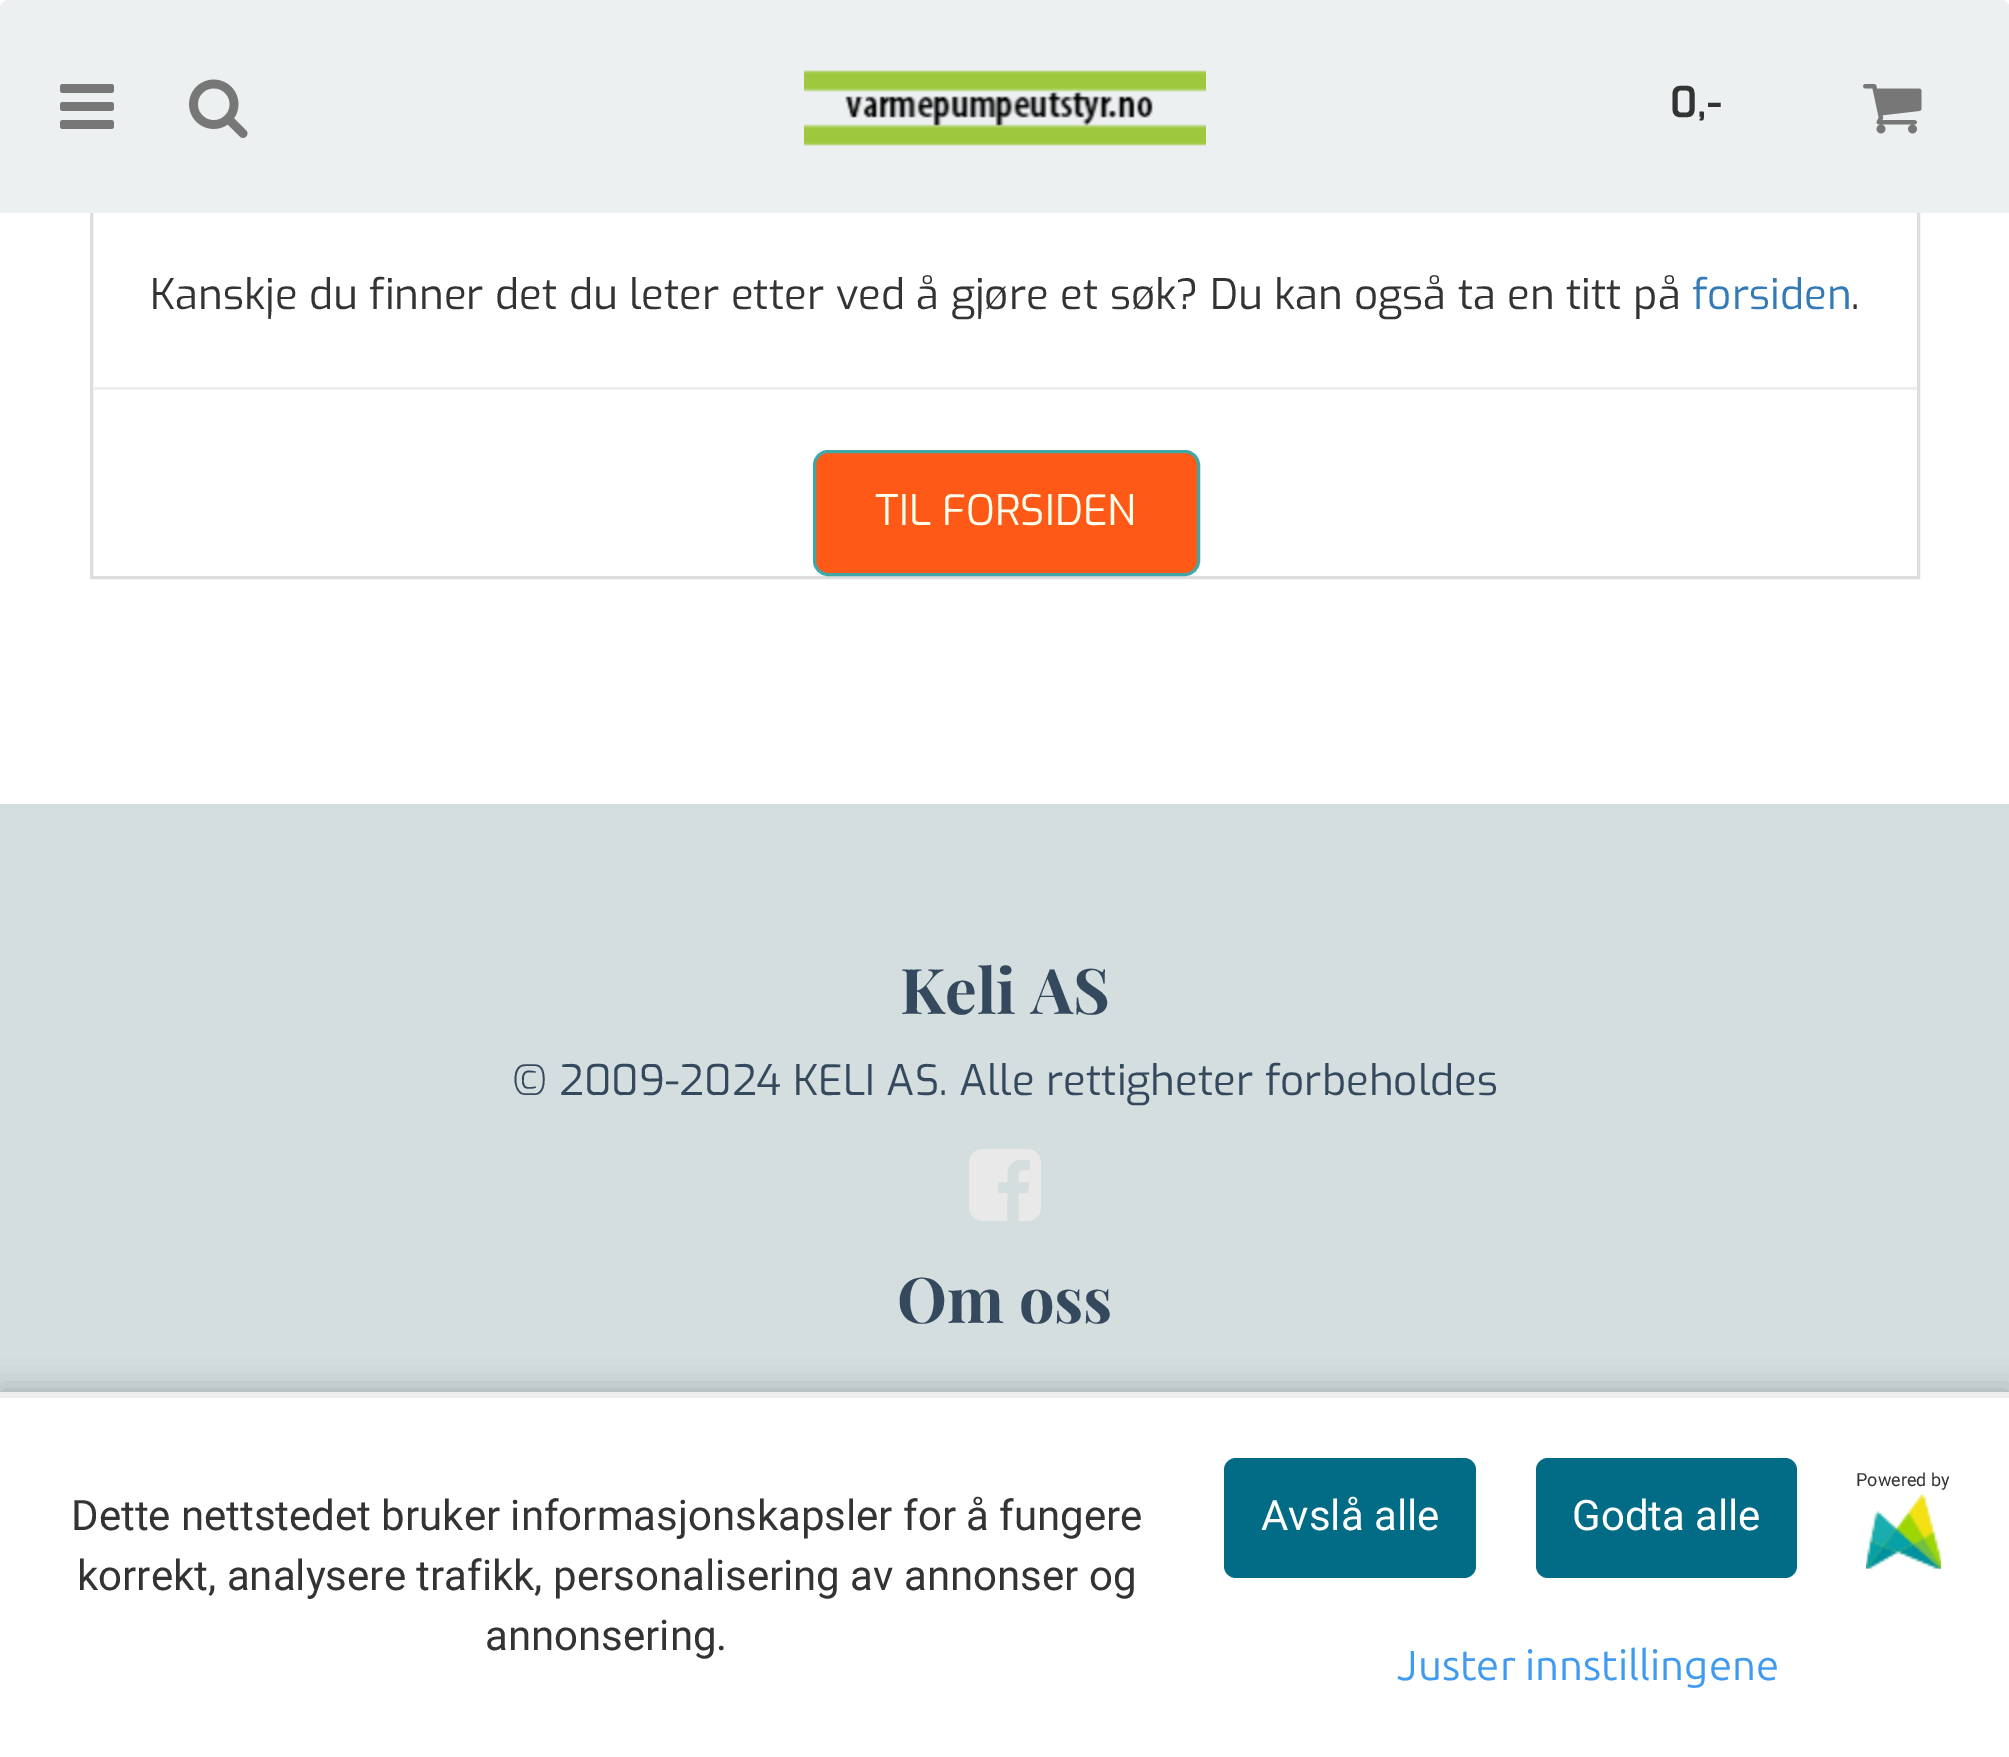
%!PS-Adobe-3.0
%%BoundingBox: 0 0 2009 1757
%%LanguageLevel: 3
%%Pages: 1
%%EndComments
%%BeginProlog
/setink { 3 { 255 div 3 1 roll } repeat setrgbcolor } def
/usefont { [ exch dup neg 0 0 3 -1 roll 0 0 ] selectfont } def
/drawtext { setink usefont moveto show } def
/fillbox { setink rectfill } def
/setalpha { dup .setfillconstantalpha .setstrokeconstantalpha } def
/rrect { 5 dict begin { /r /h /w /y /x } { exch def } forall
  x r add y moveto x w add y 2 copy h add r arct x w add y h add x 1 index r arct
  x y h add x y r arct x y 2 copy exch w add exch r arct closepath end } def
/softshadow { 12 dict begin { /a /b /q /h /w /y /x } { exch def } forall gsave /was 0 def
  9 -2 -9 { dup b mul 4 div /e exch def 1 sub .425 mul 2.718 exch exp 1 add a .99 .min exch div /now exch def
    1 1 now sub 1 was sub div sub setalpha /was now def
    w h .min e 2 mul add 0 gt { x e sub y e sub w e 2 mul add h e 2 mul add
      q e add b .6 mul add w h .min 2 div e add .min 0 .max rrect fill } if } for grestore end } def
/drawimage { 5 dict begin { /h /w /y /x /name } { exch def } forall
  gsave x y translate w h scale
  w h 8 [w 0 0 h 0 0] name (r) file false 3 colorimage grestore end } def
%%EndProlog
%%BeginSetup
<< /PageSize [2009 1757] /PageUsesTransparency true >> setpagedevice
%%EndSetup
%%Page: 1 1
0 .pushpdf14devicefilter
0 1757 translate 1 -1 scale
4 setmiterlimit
0 0 2009 1757 255 255 255 fillbox
221 221 221 setink
3 setlinewidth
91.5 115.5 1827 462 rectstroke
236 240 241 setink
9 0 moveto 2001 0 lineto 2006 0 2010 4 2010 9 curveto 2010 213 lineto 0 213 lineto 0 9 lineto 0 4 4 0 9 0 curveto closepath fill
(assets/img1.rgb) 60 84 54 45 drawimage
(assets/img2.rgb) 189 79 59 59 drawimage
(assets/img3.rgb) 804 70 402 76 drawimage
(0,-) 1670 117 /Exo-SemiBold 42 51 51 51 drawtext
(assets/img4.rgb) 1863 84 59 50 drawimage
(Kanskje du finner det du leter etter ved å gjøre et søk? Du kan også ta en titt på) 150 309 /Exo-Regular 42 51 51 51 drawtext
(forsiden) 1692 309 /Exo-Regular 42 51 122 183 drawtext
(.) 1851 309 /Exo-Regular 42 51 51 51 drawtext
93 387 1824 3 238 238 238 fillbox
255 89 23 setink
814.5 451.5 384 123 13.5 rrect gsave fill grestore
65 166 166 setink
stroke
(TIL FORSIDEN) 875 525 /Exo-Regular 42 255 255 238 drawtext
0 804 2009 588 212 222 222 fillbox
(Keli AS) 900 1014 /PlayfairDisplay-Bold 63 52 73 94 drawtext
(© 2009-2024 KELI AS. Alle rettigheter forbeholdes) 512 1095 /Exo-Regular 42 52 73 94 drawtext
(assets/img5.rgb) 969 1149 72 72 drawimage
(Om oss) 897 1323 /PlayfairDisplay-Bold 63 52 73 94 drawtext
0 0 0 setink
0 1392 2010 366 0 15 0.25 softshadow
0 1398 2009 359 255 255 255 fillbox
0 1392 2009 6 238 238 238 fillbox
(Dette nettstedet bruker informasjonskapsler for å fungere) 71 1530 /Roboto-Regular 42 51 51 51 drawtext
(korrekt, analysere trafikk, personalisering av annonser og) 77 1590 /Roboto-Regular 42 51 51 51 drawtext
(annonsering.) 485 1650 /Roboto-Regular 42 51 51 51 drawtext
(Powered by) 1856 1486 /Roboto-Regular 18 51 51 51 drawtext
(assets/img6.rgb) 1866 1494 75 75 drawimage
2 107 133 setink
1224 1458 252 120 12 rrect fill
(Avslå alle) 1261 1530 /Roboto-Regular 42 255 255 255 drawtext
2 107 133 setink
1536 1458 261 120 12 rrect fill
(Godta alle) 1572 1530 /Roboto-Regular 42 255 255 255 drawtext
(Juster innstillingene) 1397 1680 /Ubuntu-Regular 42 64 154 239 drawtext
.poppdf14devicefilter showpage
%%EOF
